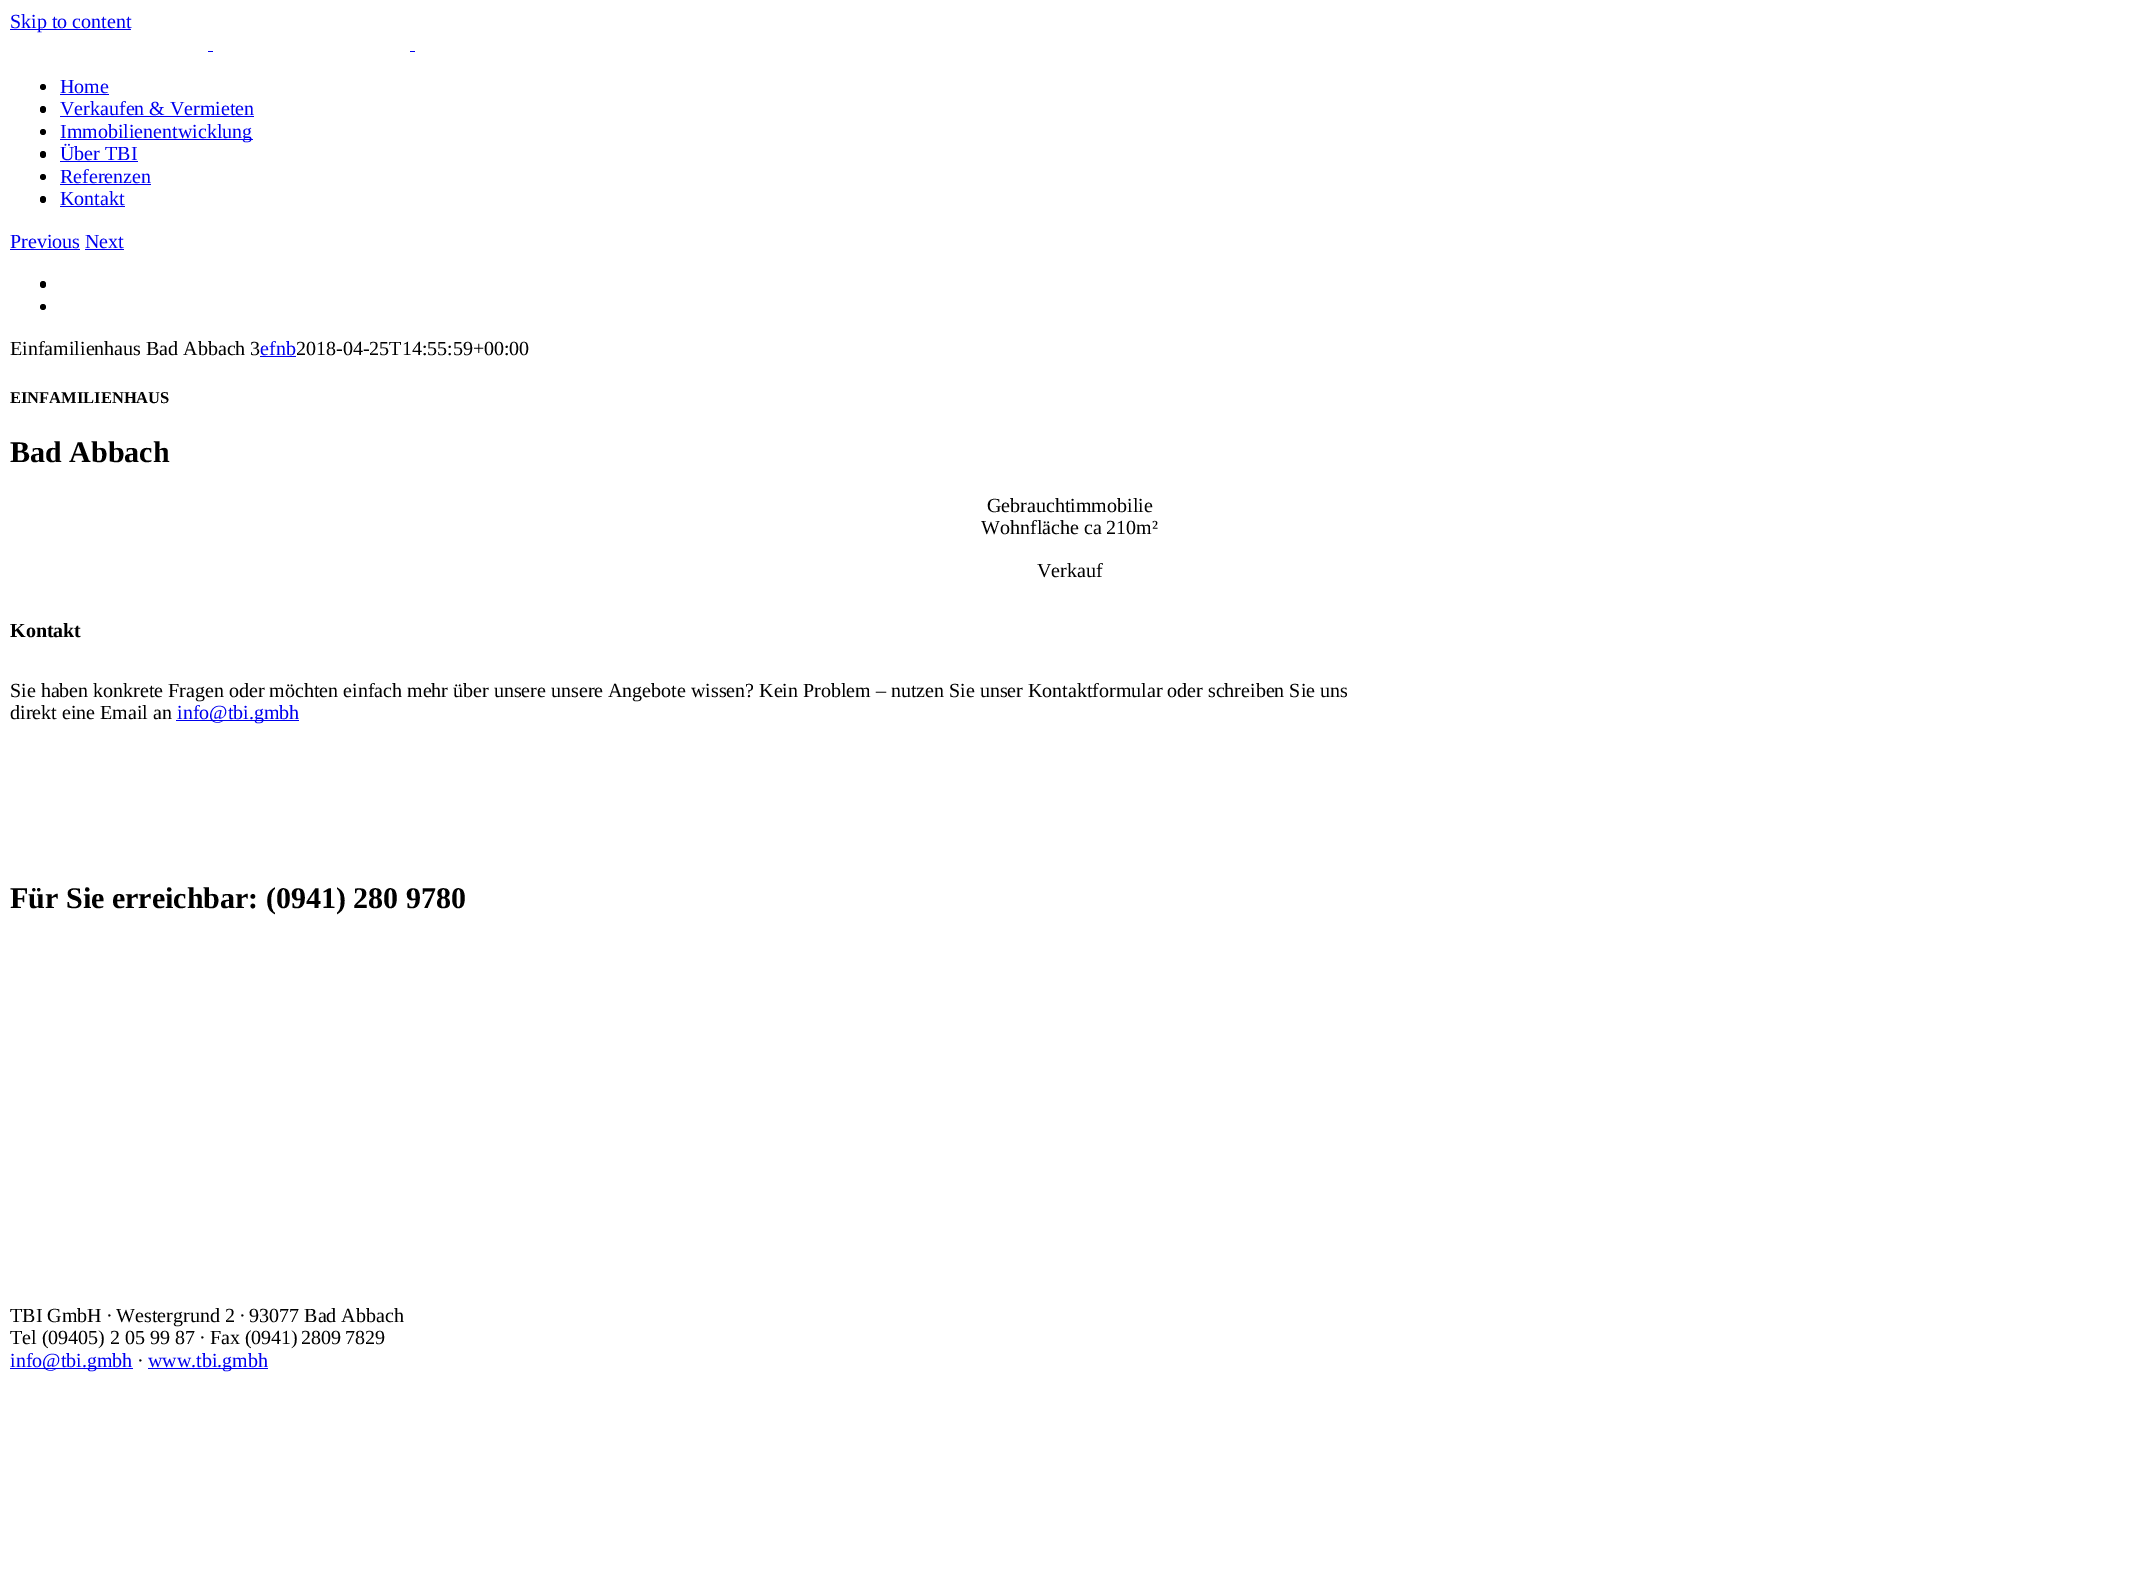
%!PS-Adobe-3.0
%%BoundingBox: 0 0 2139 1572
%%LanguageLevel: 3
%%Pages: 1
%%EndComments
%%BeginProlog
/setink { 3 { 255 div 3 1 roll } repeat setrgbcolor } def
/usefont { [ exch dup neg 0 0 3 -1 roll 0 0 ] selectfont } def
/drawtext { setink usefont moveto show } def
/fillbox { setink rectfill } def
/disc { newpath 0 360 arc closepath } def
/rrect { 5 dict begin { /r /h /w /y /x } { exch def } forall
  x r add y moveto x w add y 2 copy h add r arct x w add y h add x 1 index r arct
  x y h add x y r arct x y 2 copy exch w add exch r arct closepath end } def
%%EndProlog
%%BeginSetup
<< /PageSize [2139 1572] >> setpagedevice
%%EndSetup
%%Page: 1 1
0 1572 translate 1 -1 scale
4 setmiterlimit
0 0 2139 1572 255 255 255 fillbox
10 29 121 1 0 0 238 fillbox
(Skip to content) 10 28 /LiberationSerif-Regular 20 0 0 238 drawtext
208 51 5 1 0 0 238 fillbox
410 51 5 1 0 0 238 fillbox
0 0 0 setink
43 87 3 disc fill
(Home) 60 93 /LiberationSerif-Regular 20 0 0 238 drawtext
60 94 49 1 0 0 238 fillbox
0 0 0 setink
40 106 6 7 3 rrect fill
(Verkaufen & Vermieten) 60 115 /LiberationSerif-Regular 20 0 0 238 drawtext
60 116 194 1 0 0 238 fillbox
0 0 0 setink
43 132 3 disc fill
60 139 193 1 0 0 238 fillbox
(Immobilienentwicklung) 60 138 /LiberationSerif-Regular 20 0 0 238 drawtext
0 0 0 setink
40 151 6 7 3 rrect fill
(Über TBI) 60 160 /LiberationSerif-Regular 20 0 0 238 drawtext
60 161 78 1 0 0 238 fillbox
0 0 0 setink
43 177 3 disc fill
(Referenzen) 60 183 /LiberationSerif-Regular 20 0 0 238 drawtext
60 184 91 1 0 0 238 fillbox
0 0 0 setink
40 196 6 7 3 rrect fill
(Kontakt) 60 205 /LiberationSerif-Regular 20 0 0 238 drawtext
60 206 65 1 0 0 238 fillbox
(Previous Next) 10 248 /LiberationSerif-Regular 20 0 0 238 drawtext
10 249 70 1 0 0 238 fillbox
85 249 39 1 0 0 238 fillbox
0 0 0 setink
40 281 6 7 3 rrect fill
43 307 3 disc fill
(Einfamilienhaus Bad Abbach 3) 10 355 /LiberationSerif-Regular 20 0 0 0 drawtext
(efnb) 260 355 /LiberationSerif-Regular 20 0 0 238 drawtext
260 356 36 1 0 0 238 fillbox
(2018-04-25T14:55:59+00:00) 296 355 /LiberationSerif-Regular 20 0 0 0 drawtext
(EINFAMILIENHAUS) 10 403 /LiberationSerif-Bold 16.5 0 0 0 drawtext
(Bad Abbach) 10 462 /LiberationSerif-Bold 30 0 0 0 drawtext
(Gebrauchtimmobilie) 987 512 /LiberationSerif-Regular 20 0 0 0 drawtext
(Wohnfläche ca 210m²) 981 534 /LiberationSerif-Regular 20 0 0 0 drawtext
(Verkauf) 1037 577 /LiberationSerif-Regular 20 0 0 0 drawtext
(Kontakt) 10 637 /LiberationSerif-Bold 20 0 0 0 drawtext
(Sie haben konkrete Fragen oder möchten einfach mehr über unsere unsere Angebote wissen? Kein Problem – nutzen Sie unser Kontaktformular oder schreiben Sie uns) 10 697 /LiberationSerif-Regular 20 0 0 0 drawtext
(direkt eine Email an) 10 719 /LiberationSerif-Regular 20 0 0 0 drawtext
176 720 123 1 0 0 238 fillbox
(info@tbi.gmbh) 177 719 /LiberationSerif-Regular 20 0 0 238 drawtext
(Für Sie erreichbar: \(0941\) 280 9780) 10 908 /LiberationSerif-Bold 30 0 0 0 drawtext
(TBI GmbH · Westergrund 2 · 93077 Bad Abbach) 10 1322 /LiberationSerif-Regular 20 0 0 0 drawtext
(Tel \(09405\) 2 05 99 87 · Fax \(0941\) 2809 7829) 10 1344 /LiberationSerif-Regular 20 0 0 0 drawtext
10 1368 123 1 0 0 238 fillbox
(info@tbi.gmbh) 10 1367 /LiberationSerif-Regular 20 0 0 238 drawtext
(·) 137 1367 /LiberationSerif-Regular 20 0 0 0 drawtext
148 1368 120 1 0 0 238 fillbox
(www.tbi.gmbh) 148 1367 /LiberationSerif-Regular 20 0 0 238 drawtext
showpage
%%EOF
